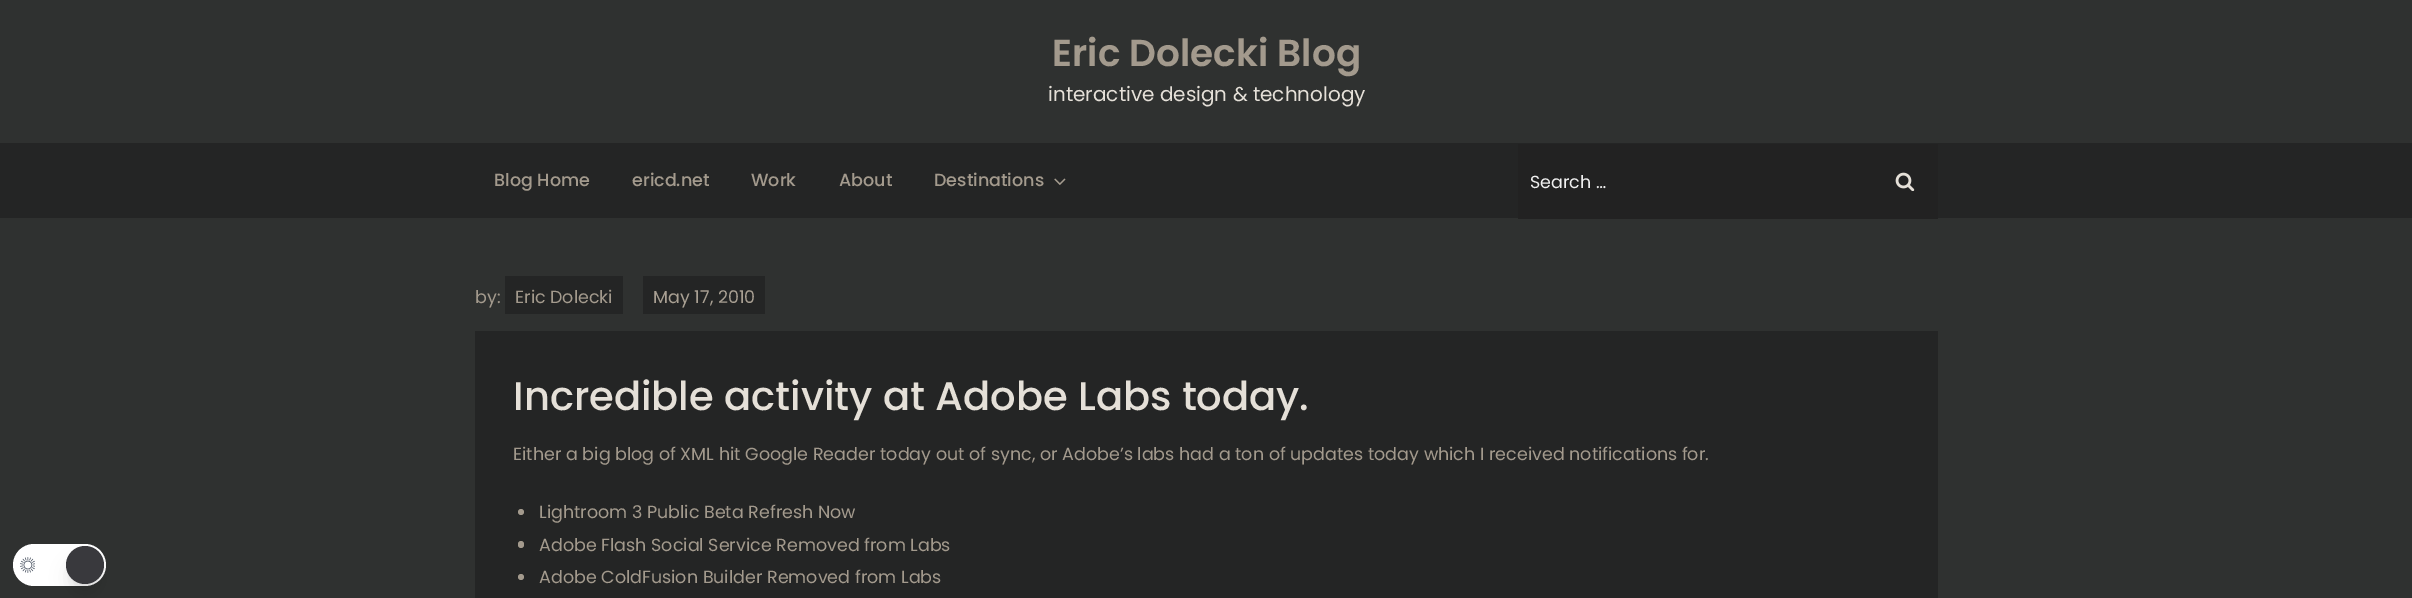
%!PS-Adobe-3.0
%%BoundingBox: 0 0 2412 598
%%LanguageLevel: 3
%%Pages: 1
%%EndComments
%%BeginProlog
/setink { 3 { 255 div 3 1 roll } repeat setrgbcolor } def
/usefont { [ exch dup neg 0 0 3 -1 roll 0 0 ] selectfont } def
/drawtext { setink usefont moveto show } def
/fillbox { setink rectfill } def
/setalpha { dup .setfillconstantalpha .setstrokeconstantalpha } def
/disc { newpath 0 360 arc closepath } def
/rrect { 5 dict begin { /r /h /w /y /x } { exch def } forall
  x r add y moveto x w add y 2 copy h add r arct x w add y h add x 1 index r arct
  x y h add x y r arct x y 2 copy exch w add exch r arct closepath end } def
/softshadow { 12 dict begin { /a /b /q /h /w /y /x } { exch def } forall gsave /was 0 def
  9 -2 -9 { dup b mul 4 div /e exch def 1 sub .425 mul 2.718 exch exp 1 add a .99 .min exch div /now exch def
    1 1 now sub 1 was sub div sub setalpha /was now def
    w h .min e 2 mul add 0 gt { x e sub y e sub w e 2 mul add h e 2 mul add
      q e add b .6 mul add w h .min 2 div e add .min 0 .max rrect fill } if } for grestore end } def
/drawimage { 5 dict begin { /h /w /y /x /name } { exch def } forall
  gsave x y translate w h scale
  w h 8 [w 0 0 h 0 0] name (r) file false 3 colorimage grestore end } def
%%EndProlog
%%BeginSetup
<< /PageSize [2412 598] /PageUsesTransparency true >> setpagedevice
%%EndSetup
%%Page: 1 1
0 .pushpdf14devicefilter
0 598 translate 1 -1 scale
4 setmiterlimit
0 0 2412 598 47 49 48 fillbox
255 255 255 setink
13 544 93 42 21 rrect fill
(assets/img1.rgb) 20 557 15 16 drawimage
0 0 0 setink
71 556 28 28 14 4 0.1 softshadow
70 563 30 30 15 9.5 0.1 softshadow
57 57 61 setink
85 565 19 disc fill
(Eric Dolecki Blog) 1052 66 /Poppins-SemiBold 37.5 163 154 141 drawtext
(interactive design & technology) 1048 101 /Poppins-Regular 20 229 224 216 drawtext
0 143 2412 75 36 37 37 fillbox
(Blog Home) 494 186 /Poppins-Medium 17.5 163 154 141 drawtext
(ericd.net) 632 186 /Poppins-Medium 17.5 163 154 141 drawtext
(Work) 751 186 /Poppins-Medium 17.5 163 154 141 drawtext
(About) 839 186 /Poppins-Medium 17.5 163 154 141 drawtext
(Destinations) 934 186 /Poppins-Medium 17.5 163 154 141 drawtext
(assets/img2.rgb) 1054 178 12 7 drawimage
1518 144 420 75 34 34 34 fillbox
(Search …) 1530 188 /Poppins-Regular 17.5 240 240 240 drawtext
(assets/img3.rgb) 1895 172 20 19 drawimage
(by:) 475 303 /Poppins-Regular 17.5 163 154 141 drawtext
505 276 118 38 36 37 37 fillbox
(Eric Dolecki) 515 303 /Poppins-Regular 17.5 163 154 141 drawtext
643 276 122 38 36 37 37 fillbox
(May 17, 2010) 653 303 /Poppins-Regular 17.5 169 160 147 drawtext
475 331 1463 267 36 37 37 fillbox
(Incredible activity at Adobe Labs today.) 513 410 /Poppins-Medium 40 229 224 216 drawtext
(Either a big blog of XML hit Google Reader today out of sync, or Adobe’s labs had a ton of updates today which I received notifications for.) 513 460 /Poppins-Regular 17.5 163 154 141 drawtext
521 512 3 disc fill
(Lightroom 3 Public Beta Refresh Now) 539 518 /Poppins-Regular 17.5 163 154 141 drawtext
518 541 6 7 3 rrect fill
(Adobe Flash Social Service Removed from Labs) 539 551 /Poppins-Regular 17.5 163 154 141 drawtext
521 577 3 disc fill
(Adobe ColdFusion Builder Removed from Labs) 539 583 /Poppins-Regular 17.5 163 154 141 drawtext
.poppdf14devicefilter showpage
%%EOF
